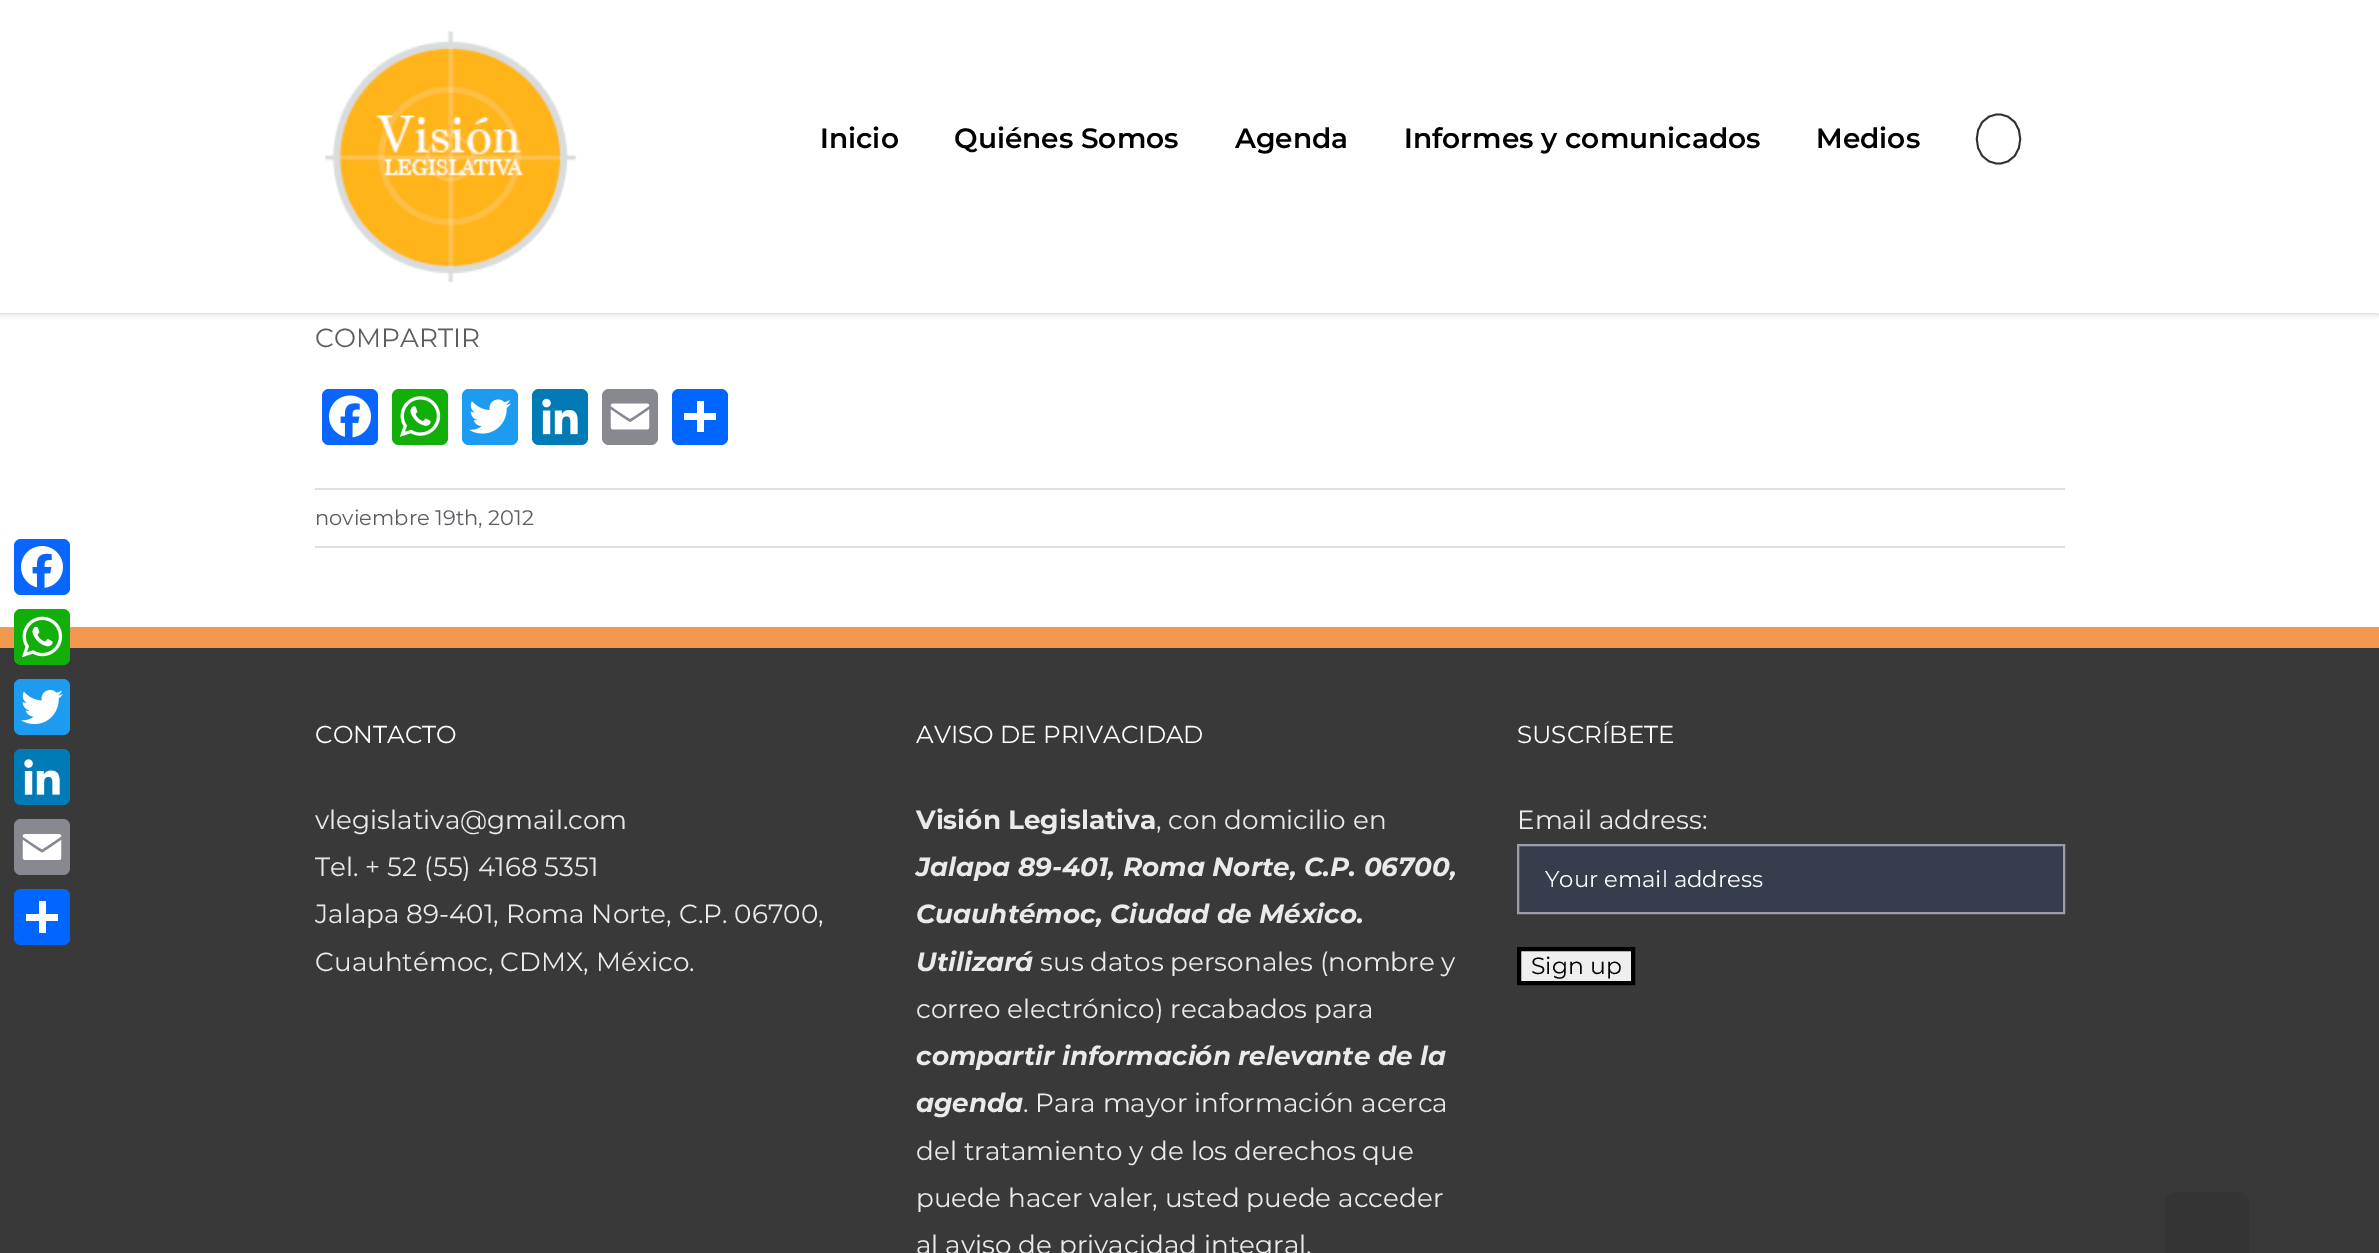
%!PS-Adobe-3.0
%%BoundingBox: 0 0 2379 1253
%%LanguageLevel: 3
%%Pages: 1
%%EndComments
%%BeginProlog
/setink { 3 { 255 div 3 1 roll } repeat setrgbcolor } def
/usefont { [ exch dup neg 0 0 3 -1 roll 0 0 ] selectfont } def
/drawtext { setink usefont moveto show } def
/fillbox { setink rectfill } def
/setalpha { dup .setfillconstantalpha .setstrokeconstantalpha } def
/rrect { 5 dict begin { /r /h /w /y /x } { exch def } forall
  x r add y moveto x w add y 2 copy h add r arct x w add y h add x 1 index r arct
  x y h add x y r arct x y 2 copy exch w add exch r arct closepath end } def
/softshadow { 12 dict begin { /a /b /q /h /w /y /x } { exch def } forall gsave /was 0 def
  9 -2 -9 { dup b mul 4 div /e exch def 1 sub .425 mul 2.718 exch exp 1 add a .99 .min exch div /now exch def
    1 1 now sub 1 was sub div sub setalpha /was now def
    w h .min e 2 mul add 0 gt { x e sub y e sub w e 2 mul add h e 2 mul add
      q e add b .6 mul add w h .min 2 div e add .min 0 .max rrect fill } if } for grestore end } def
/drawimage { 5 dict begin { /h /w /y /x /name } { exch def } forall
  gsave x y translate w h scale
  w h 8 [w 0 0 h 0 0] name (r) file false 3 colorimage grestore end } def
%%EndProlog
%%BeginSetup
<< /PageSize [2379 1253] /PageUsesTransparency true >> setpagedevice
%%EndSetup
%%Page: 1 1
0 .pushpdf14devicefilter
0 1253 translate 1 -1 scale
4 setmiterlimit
0 0 2379 1253 255 255 255 fillbox
8 102 255 setink
14 539 56 56 7 rrect fill
(assets/img1.rgb) 21 546 42 42 drawimage
0 648 2379 605 57 57 57 fillbox
0 627 2379 21 243 152 79 fillbox
18 175 10 setink
14 609 56 56 7 rrect fill
(assets/img2.rgb) 22 616 41 42 drawimage
29 155 240 setink
14 679 56 56 7 rrect fill
(assets/img3.rgb) 21 689 42 36 drawimage
0 123 181 setink
14 749 56 56 7 rrect fill
(assets/img4.rgb) 24 759 36 36 drawimage
136 137 144 setink
14 819 56 56 7 rrect fill
(assets/img5.rgb) 22 834 40 26 drawimage
1 102 255 setink
14 889 56 56 7 rrect fill
39 901 7 32 255 255 255 fillbox
26 914 32 7 255 255 255 fillbox
0 0 0 setink
0 2 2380 313 0 2.5 0.12 softshadow
0 0 2379 313 255 255 255 fillbox
(assets/img6.rgb) 324 31 253 252 drawimage
(Inicio) 820 148 /Montserrat-SemiBold 28 0 0 0 drawtext
(Quiénes Somos) 954 148 /Montserrat-SemiBold 28 0 0 0 drawtext
(Agenda) 1235 148 /Montserrat-SemiBold 28 0 0 0 drawtext
(Informes y comunicados) 1404 148 /Montserrat-SemiBold 28 0 0 0 drawtext
(Medios) 1816 148 /Montserrat-SemiBold 28 0 0 0 drawtext
48 48 48 setink
1.8 setlinewidth
1998.5 114.5 moveto 2027.5 114.5 2027.5 163.5 1998.5 163.5 curveto 1969.5 163.5 1969.5 114.5 1998.5 114.5 curveto closepath stroke
(COMPARTIR) 315 347 /Montserrat-Regular 26.25 90 93 98 drawtext
8 102 255 setink
322 389 56 56 7 rrect fill
(assets/img7.rgb) 329 395 42 43 drawimage
18 175 10 setink
392 389 56 56 7 rrect fill
(assets/img8.rgb) 400 396 41 41 drawimage
29 155 240 setink
462 389 56 56 7 rrect fill
(assets/img9.rgb) 469 399 42 35 drawimage
0 123 181 setink
532 389 56 56 7 rrect fill
(assets/img10.rgb) 542 398 36 37 drawimage
136 137 144 setink
602 389 56 56 7 rrect fill
(assets/img11.rgb) 610 403 40 27 drawimage
1 102 255 setink
672 389 56 56 7 rrect fill
697 401 7 31 255 255 255 fillbox
684 413 32 7 255 255 255 fillbox
315 488 1750 2 224 222 222 fillbox
315 546 1750 2 224 222 222 fillbox
(noviembre 19th, 2012) 315 525 /Montserrat-Regular 21 90 93 98 drawtext
(CONTACTO) 315 743 /Montserrat-Regular 24.5 255 255 255 drawtext
(vlegislativa@gmail.com) 315 829 /Montserrat-Regular 26.25 234 234 234 drawtext
(Tel. + 52 \(55\) 4168 5351) 315 876 /Montserrat-Regular 26.25 234 234 234 drawtext
(Jalapa 89-401, Roma Norte, C.P. 06700,) 315 923 /Montserrat-Regular 26.25 234 234 234 drawtext
(Cuauhtémoc, CDMX, México.) 315 971 /Montserrat-Regular 26.25 234 234 234 drawtext
(AVISO DE PRIVACIDAD) 916 743 /Montserrat-Regular 24.5 255 255 255 drawtext
(Visión Legislativa) 916 829 /Montserrat-Bold 26.25 234 234 234 drawtext
(, con domicilio en) 1156 829 /Montserrat-Regular 26.25 234 234 234 drawtext
(Jalapa 89-401, Roma Norte, C.P. 06700,) 916 876 /Montserrat-BoldItalic 26.25 234 234 234 drawtext
(Cuauhtémoc, Ciudad de México.) 916 923 /Montserrat-BoldItalic 26.25 234 234 234 drawtext
(Utilizará) 916 971 /Montserrat-BoldItalic 26.25 234 234 234 drawtext
(sus datos personales \(nombre y) 1040 971 /Montserrat-Regular 26.25 234 234 234 drawtext
(correo electrónico\) recabados para) 916 1018 /Montserrat-Regular 26.25 234 234 234 drawtext
(compartir información relevante de la) 916 1065 /Montserrat-BoldItalic 26.25 234 234 234 drawtext
(agenda) 916 1112 /Montserrat-BoldItalic 26.25 234 234 234 drawtext
(. Para mayor información acerca) 1023 1112 /Montserrat-Regular 26.25 234 234 234 drawtext
(del tratamiento y de los derechos que) 916 1160 /Montserrat-Regular 26.25 234 234 234 drawtext
(puede hacer valer, usted puede acceder) 916 1207 /Montserrat-Regular 26.25 234 234 234 drawtext
(al aviso de privacidad integral.) 916 1254 /Montserrat-Regular 26.25 234 234 234 drawtext
(SUSCRÍBETE) 1517 743 /Montserrat-Regular 24.5 255 255 255 drawtext
(Email address:) 1517 829 /Montserrat-Regular 26.25 234 234 234 drawtext
55 61 77 setink
1518 845 moveto 2064 845 lineto 2064 913 lineto 1518 913 lineto closepath gsave fill grestore
155 158 166 setink
2 setlinewidth
stroke
(Your email address) 1545 887 /Montserrat-Regular 22.75 255 255 255 drawtext
239 239 239 setink
1519 949 moveto 1633 949 lineto 1633 983 lineto 1519 983 lineto closepath gsave fill grestore
0 0 0 setink
4 setlinewidth
stroke
(Sign up) 1531 974 /Montserrat-Regular 23.5 0 0 0 drawtext
52 52 52 setink
2176 1192 moveto 2238 1192 lineto 2244 1192 2249 1197 2249 1203 curveto 2249 1253 lineto 2165 1253 lineto 2165 1203 lineto 2165 1197 2170 1192 2176 1192 curveto closepath fill
.poppdf14devicefilter showpage
%%EOF
